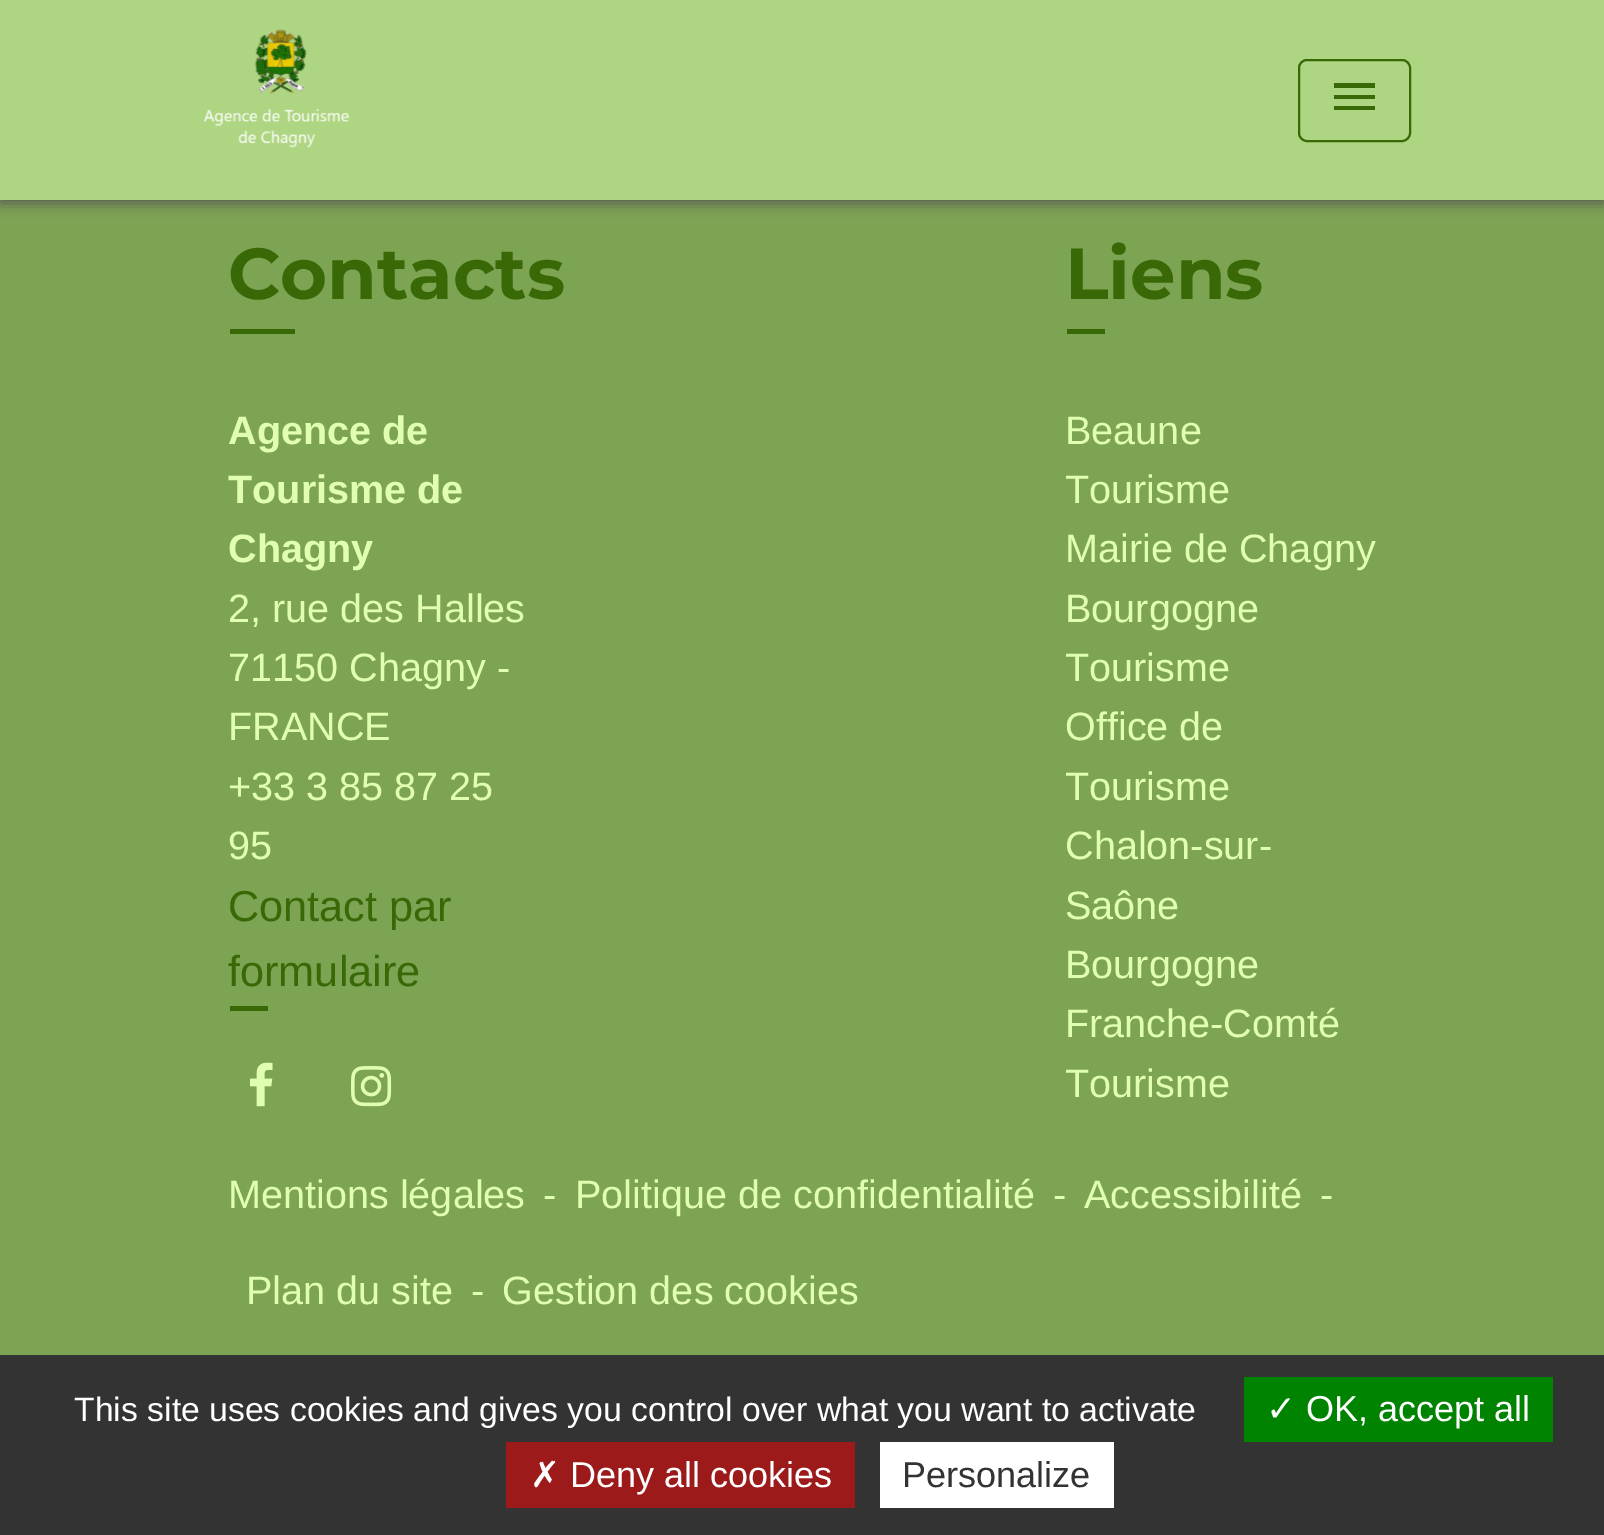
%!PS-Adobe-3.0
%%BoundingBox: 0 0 1604 1535
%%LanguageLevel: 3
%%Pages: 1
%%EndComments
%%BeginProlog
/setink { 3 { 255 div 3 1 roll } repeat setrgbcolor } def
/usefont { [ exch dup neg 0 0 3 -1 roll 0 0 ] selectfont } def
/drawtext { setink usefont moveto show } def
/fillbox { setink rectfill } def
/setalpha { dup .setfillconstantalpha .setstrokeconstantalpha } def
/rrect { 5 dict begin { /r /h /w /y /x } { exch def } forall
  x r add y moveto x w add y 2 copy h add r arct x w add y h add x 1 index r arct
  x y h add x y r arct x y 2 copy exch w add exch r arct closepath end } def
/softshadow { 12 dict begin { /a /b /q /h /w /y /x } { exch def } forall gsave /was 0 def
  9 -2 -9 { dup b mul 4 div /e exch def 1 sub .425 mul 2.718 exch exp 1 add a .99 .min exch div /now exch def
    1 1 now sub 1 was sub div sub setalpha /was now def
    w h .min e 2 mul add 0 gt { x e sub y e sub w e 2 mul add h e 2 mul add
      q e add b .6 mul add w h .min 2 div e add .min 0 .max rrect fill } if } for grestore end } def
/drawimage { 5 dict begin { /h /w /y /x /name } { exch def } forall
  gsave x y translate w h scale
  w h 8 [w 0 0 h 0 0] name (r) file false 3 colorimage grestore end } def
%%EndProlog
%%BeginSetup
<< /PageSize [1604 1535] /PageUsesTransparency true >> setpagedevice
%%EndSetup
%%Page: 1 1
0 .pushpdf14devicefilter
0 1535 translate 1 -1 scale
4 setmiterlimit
0 0 1604 1535 125 164 83 fillbox
83 83 83 setink
0 2 1604 201 0 7 1 softshadow
0 0 1604 200 174 213 129 fillbox
(assets/img1.rgb) 203 29 147 119 drawimage
57 104 6 setink
2 setlinewidth
1299 60 111 81 8 rrect stroke
1334 83 moveto 1375 83 lineto 1375 88 lineto 1334 88 lineto closepath 1334 99 moveto 1334 95 lineto 1375 95 lineto 1375 99 lineto closepath 1334 110 moveto 1334 106 lineto 1375 106 lineto 1375 110 lineto closepath fill
(Contacts) 228 299 /Montserrat-Bold 72 57 104 6 drawtext
230 329 65 5 57 104 6 fillbox
(Agence de) 228 444 /LiberationSans-Bold 39.6 225 255 177 drawtext
(Tourisme de) 228 503 /LiberationSans-Bold 39.6 225 255 177 drawtext
(Chagny) 228 562 /LiberationSans-Bold 39.6 225 255 177 drawtext
(2, rue des Halles) 228 622 /LiberationSans-Regular 39.6 225 255 177 drawtext
(71150 Chagny -) 228 681 /LiberationSans-Regular 39.6 225 255 177 drawtext
(FRANCE) 228 740 /LiberationSans-Regular 39.6 225 255 177 drawtext
(+33 3 85 87 25) 228 800 /LiberationSans-Regular 39.6 225 255 177 drawtext
(95) 228 859 /LiberationSans-Regular 39.6 225 255 177 drawtext
(Contact par) 228 921 /LiberationSans-Regular 43.25 57 104 6 drawtext
(formulaire) 228 986 /LiberationSans-Regular 43.25 57 104 6 drawtext
230 1006 38 5 57 104 6 fillbox
(assets/img2.rgb) 250 1062 23 45 drawimage
(assets/img3.rgb) 351 1066 41 41 drawimage
(Liens) 1065 299 /Montserrat-Bold 72 57 104 6 drawtext
1067 329 38 5 57 104 6 fillbox
(Beaune) 1065 444 /LiberationSans-Regular 39.6 225 255 177 drawtext
(Tourisme) 1065 503 /LiberationSans-Regular 39.6 225 255 177 drawtext
(Mairie de Chagny) 1065 562 /LiberationSans-Regular 39.6 225 255 177 drawtext
(Bourgogne) 1065 622 /LiberationSans-Regular 39.6 225 255 177 drawtext
(Tourisme) 1065 681 /LiberationSans-Regular 39.6 225 255 177 drawtext
(Office de) 1065 740 /LiberationSans-Regular 39.6 225 255 177 drawtext
(Tourisme) 1065 800 /LiberationSans-Regular 39.6 225 255 177 drawtext
(Chalon-sur-) 1065 859 /LiberationSans-Regular 39.6 225 255 177 drawtext
(Saône) 1065 919 /LiberationSans-Regular 39.6 225 255 177 drawtext
(Bourgogne) 1065 978 /LiberationSans-Regular 39.6 225 255 177 drawtext
(Franche-Comté) 1065 1037 /LiberationSans-Regular 39.6 225 255 177 drawtext
(Tourisme) 1065 1097 /LiberationSans-Regular 39.6 225 255 177 drawtext
(Mentions légales) 228 1208 /LiberationSans-Regular 39.6 225 255 177 drawtext
(-) 543 1208 /LiberationSans-Regular 39.6 225 255 177 drawtext
(Politique de confidentialité) 575 1208 /LiberationSans-Regular 39.6 225 255 177 drawtext
(-) 1053 1208 /LiberationSans-Regular 39.6 225 255 177 drawtext
(Accessibilité) 1084 1208 /LiberationSans-Regular 39.6 225 255 177 drawtext
(-) 1320 1208 /LiberationSans-Regular 39.6 225 255 177 drawtext
(Plan du site) 246 1304 /LiberationSans-Regular 39.6 225 255 177 drawtext
(-) 471 1304 /LiberationSans-Regular 39.6 225 255 177 drawtext
(Gestion des cookies) 502 1304 /LiberationSans-Regular 39.6 225 255 177 drawtext
0 1355 1604 180 51 51 51 fillbox
(This site uses cookies and gives you control over what you want to activate) 74 1421 /LiberationSans-Regular 33.75 255 255 255 drawtext
1244 1377 309 65 0 131 0 fillbox
(✓) 1266 1421 /DejaVuSans-Regular 36 255 255 255 drawtext
(OK, accept all) 1306 1421 /LiberationSans-Regular 36 255 255 255 drawtext
506 1442 349 66 156 26 26 fillbox
(✗) 530 1487 /DejaVuSans-Regular 36 255 255 255 drawtext
(Deny all cookies) 570 1487 /LiberationSans-Regular 36 255 255 255 drawtext
880 1442 234 66 255 255 255 fillbox
(Personalize) 902 1487 /LiberationSans-Regular 36 51 51 51 drawtext
.poppdf14devicefilter showpage
%%EOF
